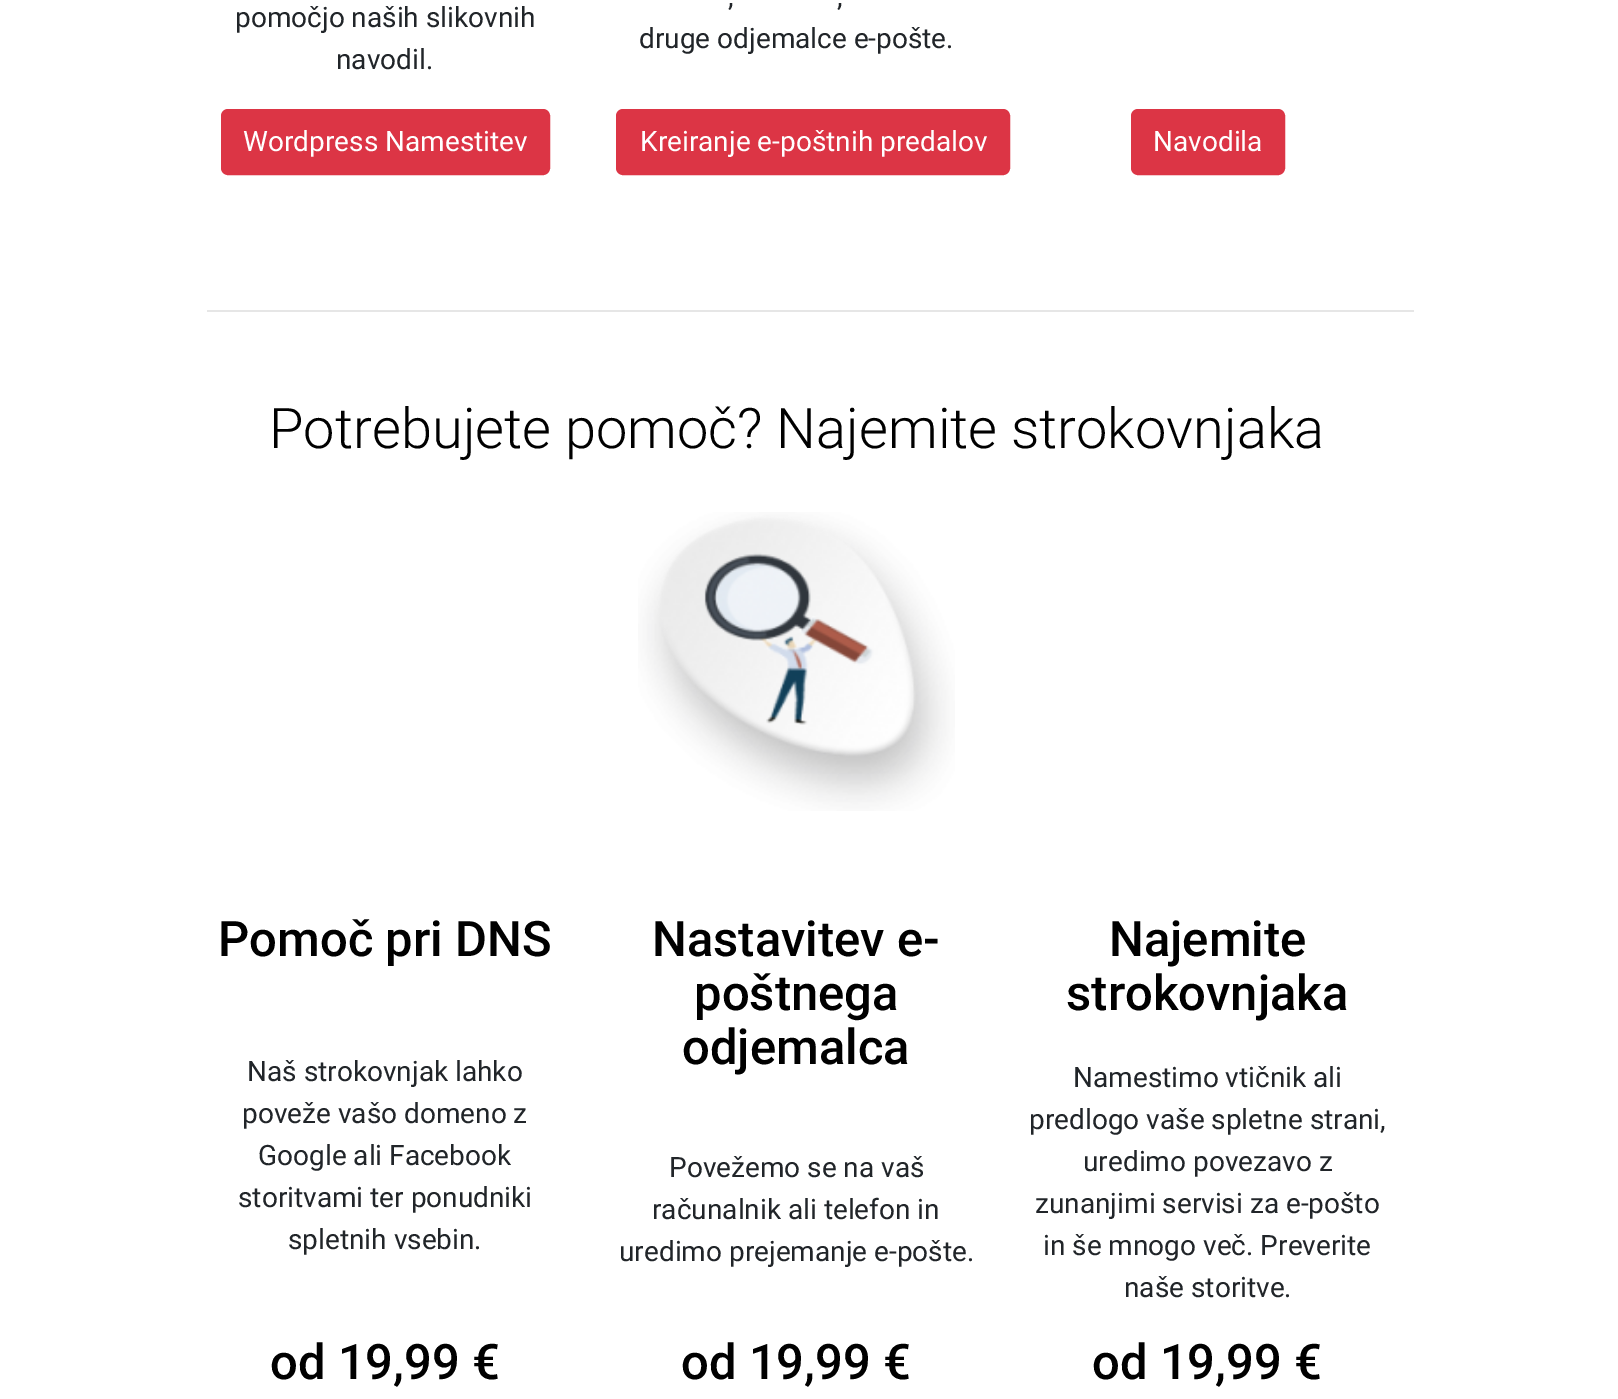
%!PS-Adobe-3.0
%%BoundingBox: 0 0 1618 1399
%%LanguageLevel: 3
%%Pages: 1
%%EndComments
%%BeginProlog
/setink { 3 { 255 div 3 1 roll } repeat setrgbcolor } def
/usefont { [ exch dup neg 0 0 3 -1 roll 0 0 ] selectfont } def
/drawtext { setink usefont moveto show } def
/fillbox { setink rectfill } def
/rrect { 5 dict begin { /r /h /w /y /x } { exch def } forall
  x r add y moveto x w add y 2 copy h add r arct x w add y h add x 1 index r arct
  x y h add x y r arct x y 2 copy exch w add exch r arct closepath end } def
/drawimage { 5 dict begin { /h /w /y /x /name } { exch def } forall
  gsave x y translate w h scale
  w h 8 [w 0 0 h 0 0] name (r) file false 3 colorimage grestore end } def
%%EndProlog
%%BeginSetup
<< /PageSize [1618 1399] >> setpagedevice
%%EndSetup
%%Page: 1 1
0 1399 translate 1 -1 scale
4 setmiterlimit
0 0 1618 1399 255 255 255 fillbox
(pomočjo naših slikovnih) 235 27 /Roboto-Regular 28 33 37 41 drawtext
(navodil.) 336 69 /Roboto-Regular 28 33 37 41 drawtext
220 53 69 setink
222 110 327 64 6 rrect gsave fill grestore
2 setlinewidth
stroke
(Wordpress Namestitev) 243 151 /Roboto-Regular 28 255 255 255 drawtext
(,) 728 6 /Roboto-Regular 28 33 37 41 drawtext
(,) 837 6 /Roboto-Regular 28 33 37 41 drawtext
(druge odjemalce e-pošte.) 639 48 /Roboto-Regular 28 33 37 41 drawtext
220 53 69 setink
617 110 392 64 6 rrect gsave fill grestore
stroke
(Kreiranje e-poštnih predalov) 640 151 /Roboto-Regular 28 255 255 255 drawtext
220 53 69 setink
1132 110 152 64 6 rrect gsave fill grestore
stroke
(Navodila) 1153 151 /Roboto-Regular 28 255 255 255 drawtext
207 310 1207 2 230 230 230 fillbox
(Potrebujete pomoč? Najemite strokovnjaka) 269 448 /Roboto-Light 56 0 0 0 drawtext
(assets/img1.rgb) 638 512 317 299 drawimage
(Pomoč pri DNS) 218 956 /Roboto-Medium 49 0 0 0 drawtext
(Naš strokovnjak lahko) 247 1081 /Roboto-Regular 28 33 37 41 drawtext
(poveže vašo domeno z) 242 1123 /Roboto-Regular 28 33 37 41 drawtext
(Google ali Facebook) 258 1165 /Roboto-Regular 28 33 37 41 drawtext
(storitvami ter ponudniki) 238 1207 /Roboto-Regular 28 33 37 41 drawtext
(spletnih vsebin.) 288 1249 /Roboto-Regular 28 33 37 41 drawtext
(od 19,99 €) 270 1379 /Roboto-Medium 49 0 0 0 drawtext
(Nastavitev e-) 652 956 /Roboto-Medium 49 0 0 0 drawtext
(poštnega) 694 1010 /Roboto-Medium 49 0 0 0 drawtext
(odjemalca) 682 1064 /Roboto-Medium 49 0 0 0 drawtext
(Povežemo se na vaš) 669 1177 /Roboto-Regular 28 33 37 41 drawtext
(računalnik ali telefon in) 652 1219 /Roboto-Regular 28 33 37 41 drawtext
(uredimo prejemanje e-pošte.) 619 1261 /Roboto-Regular 28 33 37 41 drawtext
(od 19,99 €) 681 1379 /Roboto-Medium 49 0 0 0 drawtext
(Najemite) 1109 956 /Roboto-Medium 49 0 0 0 drawtext
(strokovnjaka) 1066 1010 /Roboto-Medium 49 0 0 0 drawtext
(Namestimo vtičnik ali) 1073 1087 /Roboto-Regular 28 33 37 41 drawtext
(predlogo vaše spletne strani,) 1029 1129 /Roboto-Regular 28 33 37 41 drawtext
(uredimo povezavo z) 1083 1171 /Roboto-Regular 28 33 37 41 drawtext
(zunanjimi servisi za e-pošto) 1035 1213 /Roboto-Regular 28 33 37 41 drawtext
(in še mnogo več. Preverite) 1043 1255 /Roboto-Regular 28 33 37 41 drawtext
(naše storitve.) 1124 1297 /Roboto-Regular 28 33 37 41 drawtext
(od 19,99 €) 1092 1379 /Roboto-Medium 49 0 0 0 drawtext
showpage
%%EOF
